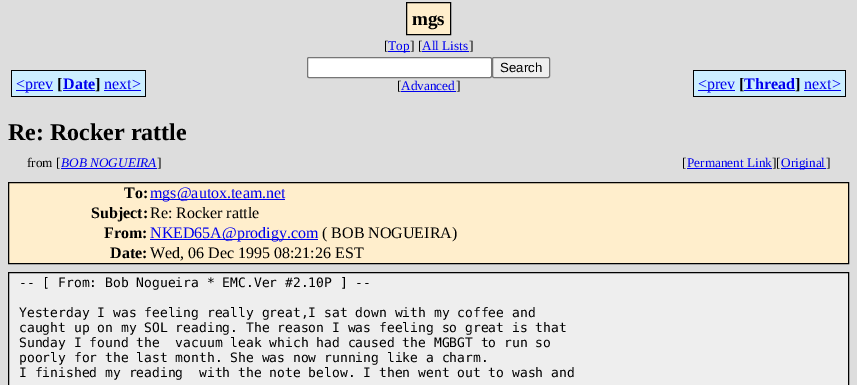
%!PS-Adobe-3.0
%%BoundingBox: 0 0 857 385
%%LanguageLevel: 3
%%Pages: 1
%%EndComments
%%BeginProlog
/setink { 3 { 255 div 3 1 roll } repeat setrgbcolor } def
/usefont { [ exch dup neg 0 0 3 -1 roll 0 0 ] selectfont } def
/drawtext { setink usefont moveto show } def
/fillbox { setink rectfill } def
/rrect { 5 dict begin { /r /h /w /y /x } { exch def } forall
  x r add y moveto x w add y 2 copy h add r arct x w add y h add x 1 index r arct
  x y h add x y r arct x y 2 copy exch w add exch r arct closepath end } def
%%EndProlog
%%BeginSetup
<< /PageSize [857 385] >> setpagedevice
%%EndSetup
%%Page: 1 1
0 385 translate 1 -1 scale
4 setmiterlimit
0 0 857 385 221 221 221 fillbox
255 238 204 setink
406.5 2.5 moveto 450.5 2.5 lineto 450.5 34.5 lineto 406.5 34.5 lineto closepath gsave fill grestore
0 0 0 setink
stroke
(mgs) 412 25 /LiberationSerif-Bold 19 0 0 0 drawtext
([) 384 50 /LiberationSerif-Regular 13.25 0 0 0 drawtext
388 51 22 1 0 0 238 fillbox
(Top) 388 50 /LiberationSerif-Regular 13.25 0 0 238 drawtext
(] [) 410 50 /LiberationSerif-Regular 13.25 0 0 0 drawtext
(All Lists) 422 50 /LiberationSerif-Regular 13.25 0 0 238 drawtext
(]) 469 50 /LiberationSerif-Regular 13.25 0 0 0 drawtext
422 51 47 1 0 0 238 fillbox
12 71 41 25 204 238 255 fillbox
16 90 37 1 0 0 238 fillbox
53 70 10 27 204 238 255 fillbox
(<prev) 16 89 /LiberationSerif-Regular 16 0 0 238 drawtext
11 70 42 1 0 0 0 fillbox
11 96 42 1 0 0 0 fillbox
11 70 1 27 0 0 0 fillbox
53 96 42 1 0 0 0 fillbox
([) 57 89 /LiberationSerif-Bold 16 0 0 0 drawtext
63 71 32 25 204 238 255 fillbox
63 90 32 1 0 0 238 fillbox
(Date) 63 89 /LiberationSerif-Bold 16 0 0 238 drawtext
53 70 42 1 0 0 0 fillbox
95 70 9 27 204 238 255 fillbox
95 70 51 1 0 0 0 fillbox
(]) 95 89 /LiberationSerif-Bold 16 0 0 0 drawtext
95 96 9 1 0 0 0 fillbox
104 71 41 25 204 238 255 fillbox
(next>) 104 89 /LiberationSerif-Regular 16 0 0 238 drawtext
145 70 1 27 0 0 0 fillbox
104 96 42 1 0 0 0 fillbox
104 90 37 1 0 0 238 fillbox
255 255 255 setink
307.5 57.5 184 20 1.5 rrect gsave fill grestore
118 118 118 setink
stroke
239 239 239 setink
492.5 57.5 57 20 1.5 rrect gsave fill grestore
118 118 118 setink
stroke
(Search) 500 72 /LiberationSans-Regular 13.25 0 0 0 drawtext
([) 397 90 /LiberationSerif-Regular 13.25 0 0 0 drawtext
401 91 55 1 0 0 238 fillbox
(Advanced) 401 90 /LiberationSerif-Regular 13.25 0 0 238 drawtext
(]) 456 90 /LiberationSerif-Regular 13.25 0 0 0 drawtext
694 71 41 25 204 238 255 fillbox
698 90 37 1 0 0 238 fillbox
735 70 9 27 204 238 255 fillbox
(<prev) 698 89 /LiberationSerif-Regular 16 0 0 238 drawtext
693 70 42 1 0 0 0 fillbox
693 96 42 1 0 0 0 fillbox
693 70 1 27 0 0 0 fillbox
735 96 60 1 0 0 0 fillbox
([) 739 89 /LiberationSerif-Bold 16 0 0 0 drawtext
744 71 51 25 204 238 255 fillbox
744 90 51 1 0 0 238 fillbox
(Thread) 744 89 /LiberationSerif-Bold 16 0 0 238 drawtext
735 70 60 1 0 0 0 fillbox
795 70 9 27 204 238 255 fillbox
795 70 51 1 0 0 0 fillbox
(]) 795 89 /LiberationSerif-Bold 16 0 0 0 drawtext
795 96 9 1 0 0 0 fillbox
804 71 41 25 204 238 255 fillbox
(next>) 804 89 /LiberationSerif-Regular 16 0 0 238 drawtext
845 70 1 27 0 0 0 fillbox
804 96 42 1 0 0 0 fillbox
804 90 37 1 0 0 238 fillbox
(Re: Rocker rattle) 8 140 /LiberationSerif-Bold 24 0 0 0 drawtext
(from [) 27 167 /LiberationSerif-Regular 13.25 0 0 0 drawtext
61 168 96 1 0 0 238 fillbox
(BOB NOGUEIRA) 61 167 /LiberationSerif-Italic 13.25 0 0 238 drawtext
(]) 157 167 /LiberationSerif-Regular 13.25 0 0 0 drawtext
([) 682 167 /LiberationSerif-Regular 13.25 0 0 0 drawtext
687 168 85 1 0 0 238 fillbox
(Permanent Link) 687 167 /LiberationSerif-Regular 13.25 0 0 238 drawtext
(][) 772 167 /LiberationSerif-Regular 13.25 0 0 0 drawtext
781 168 45 1 0 0 238 fillbox
(Original) 781 167 /LiberationSerif-Regular 13.25 0 0 238 drawtext
(]) 826 167 /LiberationSerif-Regular 13.25 0 0 0 drawtext
255 238 204 setink
8.5 182.5 moveto 848.5 182.5 lineto 848.5 263.5 lineto 8.5 263.5 lineto closepath gsave fill grestore
0 0 0 setink
stroke
(To:) 124 198 /LiberationSerif-Bold 16 0 0 0 drawtext
150 199 135 1 0 0 238 fillbox
(mgs@autox.team.net) 150 198 /LiberationSerif-Regular 16 0 0 238 drawtext
(Subject:) 91 218 /LiberationSerif-Bold 16 0 0 0 drawtext
(Re: Rocker rattle) 150 218 /LiberationSerif-Regular 16 0 0 0 drawtext
(From:) 104 238 /LiberationSerif-Bold 16 0 0 0 drawtext
150 239 168 1 0 0 238 fillbox
(NKED65A@prodigy.com) 150 238 /LiberationSerif-Regular 16 0 0 238 drawtext
(\( BOB NOGUEIRA\)) 322 238 /LiberationSerif-Regular 16 0 0 0 drawtext
(Date:) 110 258 /LiberationSerif-Bold 16 0 0 0 drawtext
(Wed, 06 Dec 1995 08:21:26 EST) 150 258 /LiberationSerif-Regular 16 0 0 0 drawtext
238 238 238 setink
8.5 272.5 moveto 848.5 272.5 lineto 848.5 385.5 lineto 8.5 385.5 lineto closepath gsave fill grestore
0 0 0 setink
stroke
(-- [ From: Bob Nogueira * EMC.Ver #2.10P ] --) 19 287 /DejaVuSansMono-Regular 13 0 0 0 drawtext
(Yesterday I was feeling really great,I sat down with my coffee and) 19 317 /DejaVuSansMono-Regular 13 0 0 0 drawtext
(caught up on my SOL reading. The reason I was feeling so great is that) 19 332 /DejaVuSansMono-Regular 13 0 0 0 drawtext
(Sunday I found the  vacuum leak which had caused the MGBGT to run so) 19 347 /DejaVuSansMono-Regular 13 0 0 0 drawtext
(poorly for the last month. She was now running like a charm.) 19 362 /DejaVuSansMono-Regular 13 0 0 0 drawtext
(I finished my reading  with the note below. I then went out to wash and) 19 377 /DejaVuSansMono-Regular 13 0 0 0 drawtext
showpage
%%EOF
